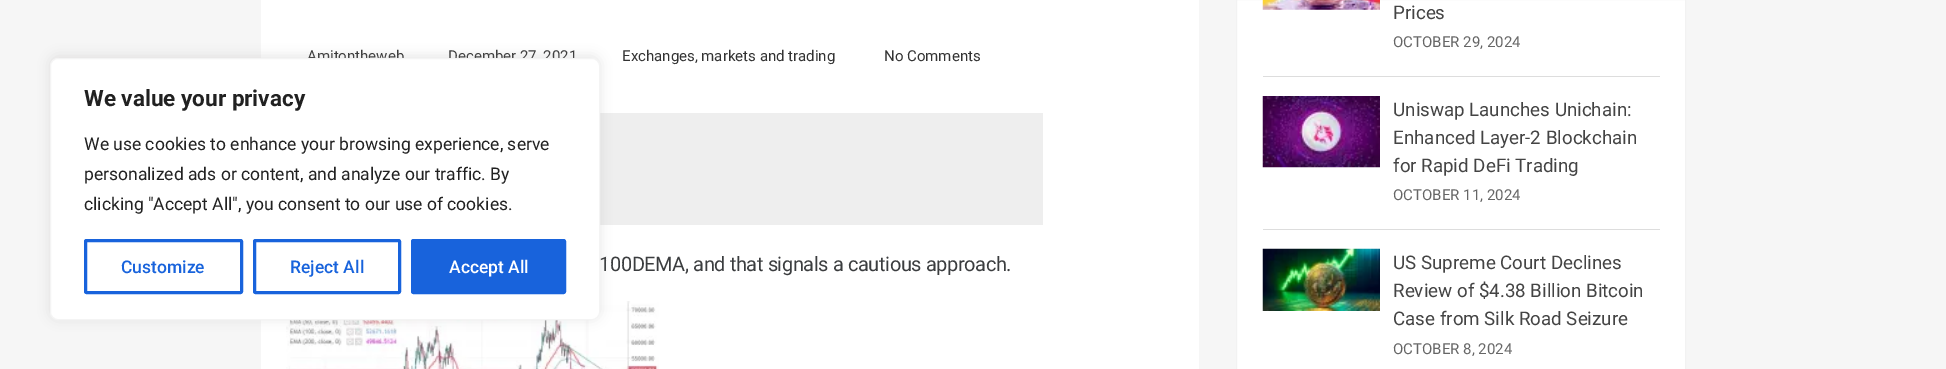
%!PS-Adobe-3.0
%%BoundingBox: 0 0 1946 369
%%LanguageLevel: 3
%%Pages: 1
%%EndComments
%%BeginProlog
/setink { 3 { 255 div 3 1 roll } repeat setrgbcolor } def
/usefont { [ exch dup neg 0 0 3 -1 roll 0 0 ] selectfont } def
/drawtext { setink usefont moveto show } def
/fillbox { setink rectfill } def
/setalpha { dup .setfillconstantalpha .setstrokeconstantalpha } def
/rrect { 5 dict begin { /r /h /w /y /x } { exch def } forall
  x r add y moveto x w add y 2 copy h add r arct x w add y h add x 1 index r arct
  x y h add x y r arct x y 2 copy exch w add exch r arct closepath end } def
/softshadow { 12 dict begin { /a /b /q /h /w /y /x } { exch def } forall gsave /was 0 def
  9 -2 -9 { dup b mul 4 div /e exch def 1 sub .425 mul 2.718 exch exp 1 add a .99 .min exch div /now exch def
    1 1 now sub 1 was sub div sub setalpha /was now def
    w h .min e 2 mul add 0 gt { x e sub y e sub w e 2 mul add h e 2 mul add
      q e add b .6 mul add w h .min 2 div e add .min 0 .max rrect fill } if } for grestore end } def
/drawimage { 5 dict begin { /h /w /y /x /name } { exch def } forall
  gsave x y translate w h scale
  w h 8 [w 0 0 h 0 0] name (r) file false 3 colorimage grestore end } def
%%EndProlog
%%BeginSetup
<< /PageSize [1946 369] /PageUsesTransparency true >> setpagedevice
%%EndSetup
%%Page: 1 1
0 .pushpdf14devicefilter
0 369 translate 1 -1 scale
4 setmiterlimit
0 0 1946 369 246 246 246 fillbox
261 0 938 369 255 255 255 fillbox
(Amitontheweb) 307 61 /Roboto-Regular 15 51 51 51 drawtext
(December 27, 2021) 448 61 /Roboto-Regular 15 51 51 51 drawtext
(Exchanges, markets and trading) 622 61 /Roboto-Regular 15 51 51 51 drawtext
(No Comments) 884 61 /Roboto-Regular 15 51 51 51 drawtext
600 113 443 112 238 238 238 fillbox
/Roboto-Regular 20 usefont
59 61 63 setink
599 271 moveto -0.4 0 (100DEMA, and that signals a cautious approach.) ashow
(assets/img1.rgb) 286 301 373 68 drawimage
255 255 255 setink
1236.5 -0.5 moveto 1685.5 -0.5 lineto 1685.5 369.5 lineto 1236.5 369.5 lineto closepath gsave fill grestore
242 242 242 setink
stroke
1263 76 397 1 221 221 221 fillbox
(assets/img2.rgb) 1262 0 118 10 drawimage
(Prices) 1393 19 /Roboto-Regular 18.75 68 68 68 drawtext
(OCTOBER 29, 2024) 1393 47 /Roboto-Regular 15 102 102 102 drawtext
1263 229 397 1 221 221 221 fillbox
(assets/img3.rgb) 1262 96 118 72 drawimage
(Uniswap Launches Unichain:) 1393 116 /Roboto-Regular 18.75 68 68 68 drawtext
(Enhanced Layer-2 Blockchain) 1393 144 /Roboto-Regular 18.75 68 68 68 drawtext
(for Rapid DeFi Trading) 1393 172 /Roboto-Regular 18.75 68 68 68 drawtext
(OCTOBER 11, 2024) 1393 200 /Roboto-Regular 15 102 102 102 drawtext
(assets/img4.rgb) 1262 248 118 63 drawimage
(US Supreme Court Declines) 1393 269 /Roboto-Regular 18.75 68 68 68 drawtext
(Review of $4.38 Billion Bitcoin) 1393 297 /Roboto-Regular 18.75 68 68 68 drawtext
(Case from Silk Road Seizure) 1393 325 /Roboto-Regular 18.75 68 68 68 drawtext
(OCTOBER 8, 2024) 1393 354 /Roboto-Regular 15 102 102 102 drawtext
172 171 171 setink
50 56 550 263 8 6 0.3 softshadow
255 255 255 setink
50.5 58.5 549 261 7.5 rrect gsave fill grestore
244 244 244 setink
stroke
(We value your privacy) 84 106 /Roboto-Bold 22.5 33 33 33 drawtext
(We use cookies to enhance your browsing experience, serve) 84 150 /Roboto-Regular 17.5 33 33 33 drawtext
(personalized ads or content, and analyze our traffic. By) 84 180 /Roboto-Regular 17.5 33 33 33 drawtext
(clicking "Accept All", you consent to our use of cookies.) 84 210 /Roboto-Regular 17.5 33 33 33 drawtext
24 99 220 setink
3 setlinewidth
85.5 240.5 156 52 1 rrect stroke
(Customize) 121 273 /Roboto-Medium 17.5 24 99 220 drawtext
254.5 240.5 145 52 1 rrect stroke
(Reject All) 290 273 /Roboto-Medium 17.5 24 99 220 drawtext
412.5 240.5 152 52 1 rrect gsave fill grestore
stroke
(Accept All) 449 273 /Roboto-Medium 17.5 255 255 255 drawtext
.poppdf14devicefilter showpage
%%EOF
